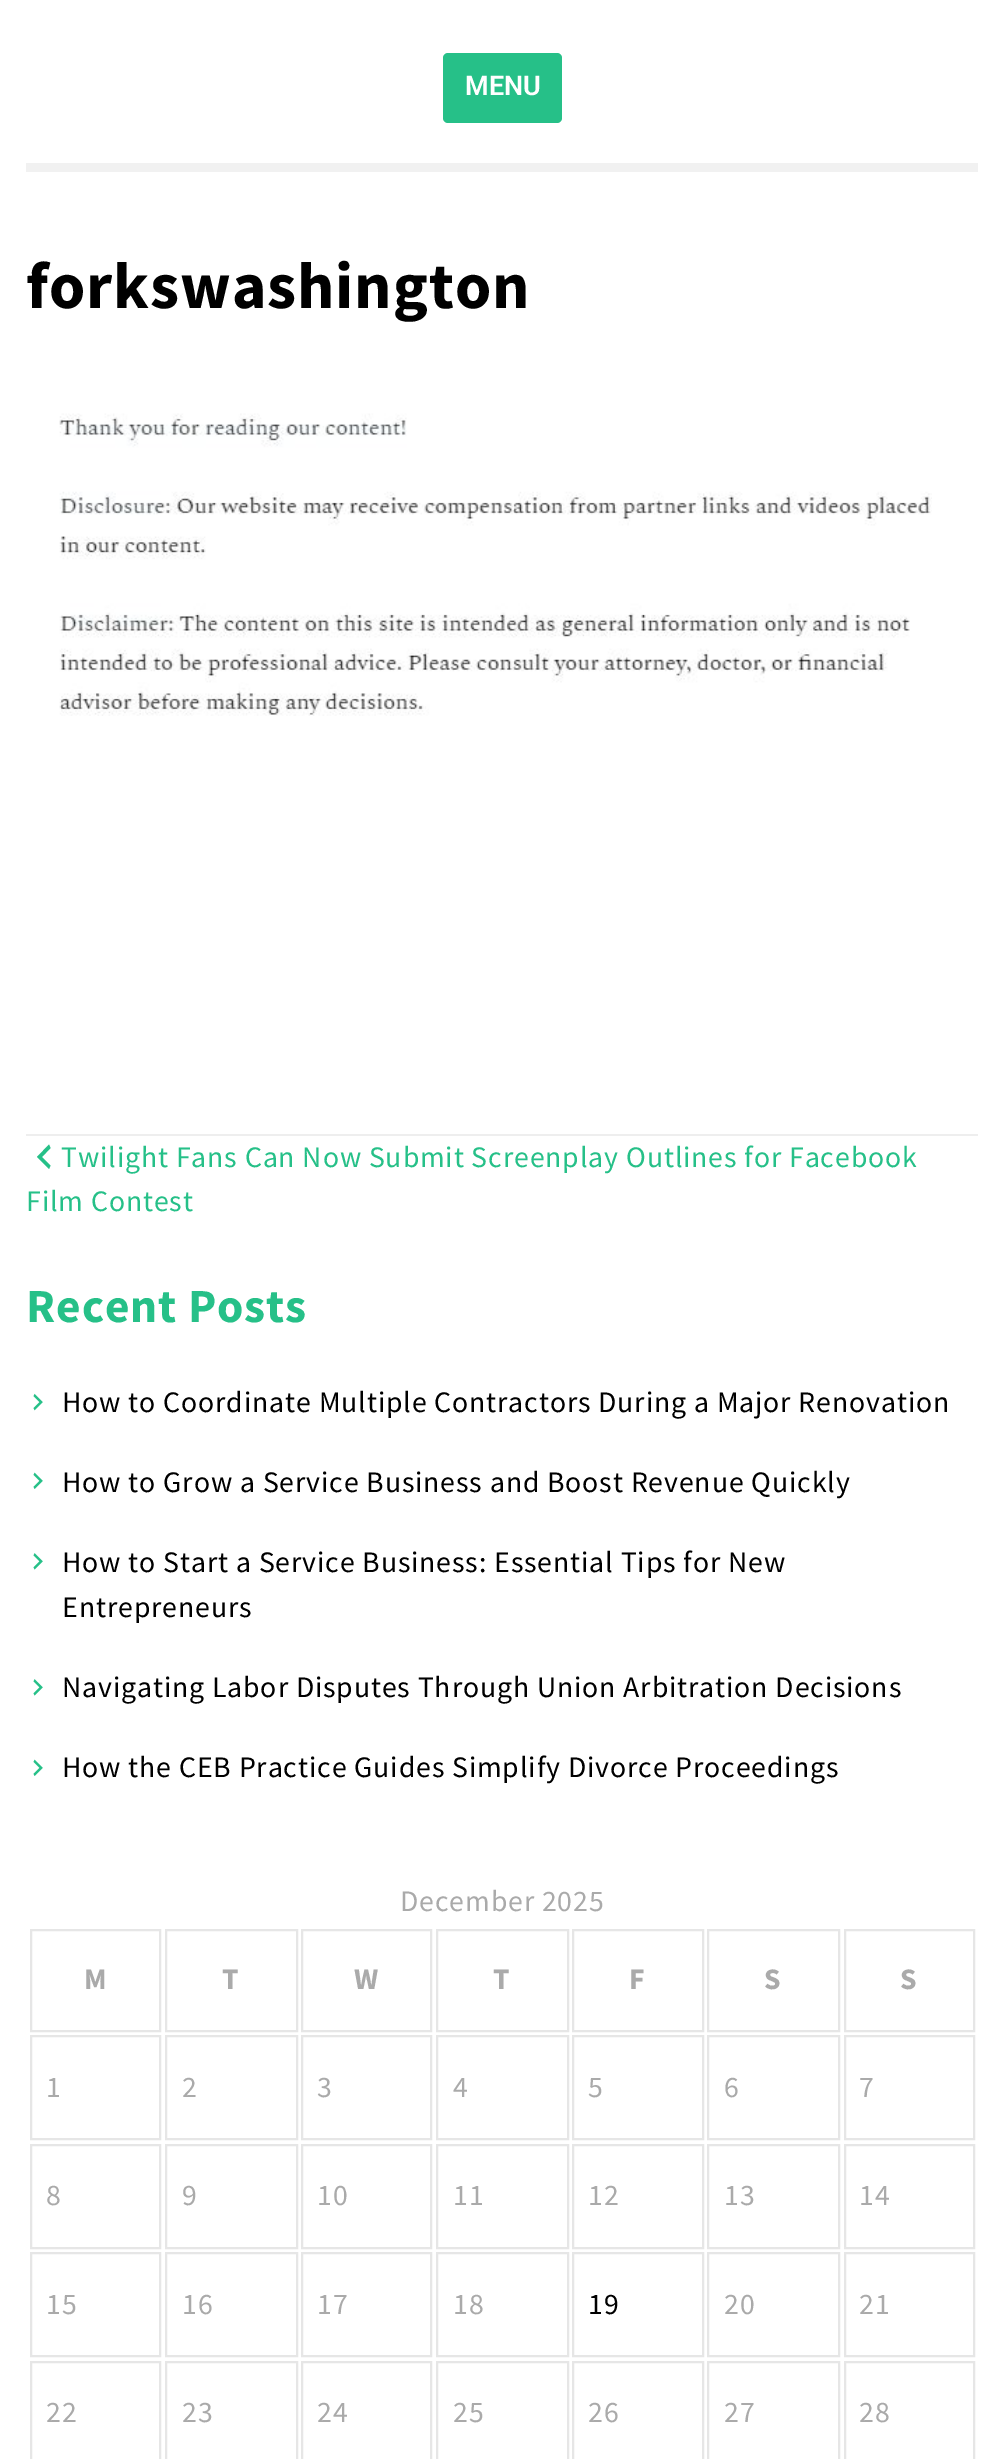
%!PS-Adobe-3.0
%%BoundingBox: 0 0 1003 2459
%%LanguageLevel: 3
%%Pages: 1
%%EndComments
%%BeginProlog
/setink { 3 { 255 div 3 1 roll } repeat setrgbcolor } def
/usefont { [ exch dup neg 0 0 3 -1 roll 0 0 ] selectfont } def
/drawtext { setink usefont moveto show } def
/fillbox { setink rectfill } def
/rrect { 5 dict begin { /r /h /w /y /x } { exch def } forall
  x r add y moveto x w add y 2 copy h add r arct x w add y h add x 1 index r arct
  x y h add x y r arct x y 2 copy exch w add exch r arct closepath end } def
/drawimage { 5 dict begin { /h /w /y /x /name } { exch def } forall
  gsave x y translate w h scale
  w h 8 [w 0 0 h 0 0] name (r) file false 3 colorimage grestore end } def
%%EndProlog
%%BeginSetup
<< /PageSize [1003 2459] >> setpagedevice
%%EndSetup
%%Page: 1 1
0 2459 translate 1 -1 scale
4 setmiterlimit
0 0 1003 2459 255 255 255 fillbox
26 163 952 9 241 241 241 fillbox
38 192 136 setink
443 53 119 70 5 rrect fill
(MENU) 465 95 /Roboto-SemiBold 27 255 255 255 drawtext
26 1134 952 2 238 238 238 fillbox
/SourceSansPro-Bold 65.5 usefont
0 0 0 setink
26 308 moveto 0.9 0 (forkswashington) ashow
(assets/img1.rgb) 59 413 873 303 drawimage
38 192 136 setink
50.5 1148 moveto 42 1157 lineto 50.5 1165.5 lineto 49 1169 lineto 37 1157 lineto 49 1144.5 lineto closepath fill
/SourceSansPro-Regular 29.75 usefont
61 1167 moveto 0.9 0 (Twilight Fans Can Now Submit Screenplay Outlines for Facebook) ashow
26 1211 moveto 0.9 0 (Film Contest) ashow
/SourceSansPro-Bold 47.5 usefont
26 1322 moveto 0.9 0 (Recent Posts) ashow
(assets/img2.rgb) 33 1393 10 18 drawimage
/SourceSansPro-Regular 29.75 usefont
0 0 0 setink
62 1412 moveto 0.9 0 (How to Coordinate Multiple Contractors During a Major Renovation) ashow
(assets/img3.rgb) 33 1472 10 17 drawimage
62 1492 moveto 0.9 0 (How to Grow a Service Business and Boost Revenue Quickly) ashow
(assets/img4.rgb) 33 1553 10 17 drawimage
62 1572 moveto 0.9 0 (How to Start a Service Business: Essential Tips for New) ashow
62 1617 moveto 0.9 0 (Entrepreneurs) ashow
(assets/img4.rgb) 33 1679 10 17 drawimage
62 1697 moveto 0.9 0 (Navigating Labor Disputes Through Union Arbitration Decisions) ashow
(assets/img3.rgb) 33 1759 10 17 drawimage
62 1777 moveto 0.9 0 (How the CEB Practice Guides Simplify Divorce Proceedings) ashow
170 170 170 setink
400 1911 moveto 0.9 0 (December 2025) ashow
230 230 230 setink
2 setlinewidth
31 1930 129 101 rectstroke
/SourceSansPro-Bold 29.75 usefont
170 170 170 setink
84 1989 moveto 0.9 0 (M) ashow
230 230 230 setink
166 1930 131 101 rectstroke
170 170 170 setink
222 1989 moveto 0.9 0 (T) ashow
230 230 230 setink
302 1930 129 101 rectstroke
170 170 170 setink
354 1989 moveto 0.9 0 (W) ashow
230 230 230 setink
437 1930 131 101 rectstroke
170 170 170 setink
493 1989 moveto 0.9 0 (T) ashow
230 230 230 setink
573 1930 130 101 rectstroke
170 170 170 setink
629 1989 moveto 0.9 0 (F) ashow
230 230 230 setink
708 1930 131 101 rectstroke
170 170 170 setink
764 1989 moveto 0.9 0 (S) ashow
230 230 230 setink
845 1930 129 101 rectstroke
170 170 170 setink
900 1989 moveto 0.9 0 (S) ashow
230 230 230 setink
31 2036 129 103 rectstroke
/SourceSansPro-Regular 29.75 usefont
170 170 170 setink
46 2097 moveto 0.9 0 (1) ashow
230 230 230 setink
166 2036 131 103 rectstroke
170 170 170 setink
182 2097 moveto 0.9 0 (2) ashow
230 230 230 setink
302 2036 129 103 rectstroke
170 170 170 setink
317 2097 moveto 0.9 0 (3) ashow
230 230 230 setink
437 2036 131 103 rectstroke
170 170 170 setink
453 2097 moveto 0.9 0 (4) ashow
230 230 230 setink
573 2036 130 103 rectstroke
170 170 170 setink
588 2097 moveto 0.9 0 (5) ashow
230 230 230 setink
708 2036 131 103 rectstroke
170 170 170 setink
724 2097 moveto 0.9 0 (6) ashow
230 230 230 setink
845 2036 129 103 rectstroke
170 170 170 setink
859 2097 moveto 0.9 0 (7) ashow
230 230 230 setink
31 2145 129 103 rectstroke
170 170 170 setink
46 2205 moveto 0.9 0 (8) ashow
230 230 230 setink
166 2145 131 103 rectstroke
170 170 170 setink
182 2205 moveto 0.9 0 (9) ashow
230 230 230 setink
302 2145 129 103 rectstroke
170 170 170 setink
317 2205 moveto 0.9 0 (10) ashow
230 230 230 setink
437 2145 131 103 rectstroke
170 170 170 setink
453 2205 moveto 0.9 0 (11) ashow
230 230 230 setink
573 2145 130 103 rectstroke
170 170 170 setink
588 2205 moveto 0.9 0 (12) ashow
230 230 230 setink
708 2145 131 103 rectstroke
170 170 170 setink
724 2205 moveto 0.9 0 (13) ashow
230 230 230 setink
845 2145 129 103 rectstroke
170 170 170 setink
859 2205 moveto 0.9 0 (14) ashow
230 230 230 setink
31 2253 129 103 rectstroke
170 170 170 setink
46 2314 moveto 0.9 0 (15) ashow
230 230 230 setink
166 2253 131 103 rectstroke
170 170 170 setink
182 2314 moveto 0.9 0 (16) ashow
230 230 230 setink
302 2253 129 103 rectstroke
170 170 170 setink
317 2314 moveto 0.9 0 (17) ashow
230 230 230 setink
437 2253 131 103 rectstroke
170 170 170 setink
453 2314 moveto 0.9 0 (18) ashow
230 230 230 setink
573 2253 130 103 rectstroke
0 0 0 setink
588 2314 moveto 0.9 0 (19) ashow
230 230 230 setink
708 2253 131 103 rectstroke
170 170 170 setink
724 2314 moveto 0.9 0 (20) ashow
230 230 230 setink
845 2253 129 103 rectstroke
170 170 170 setink
859 2314 moveto 0.9 0 (21) ashow
230 230 230 setink
31 2362 129 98 rectstroke
170 170 170 setink
46 2422 moveto 0.9 0 (22) ashow
230 230 230 setink
166 2362 131 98 rectstroke
170 170 170 setink
182 2422 moveto 0.9 0 (23) ashow
230 230 230 setink
302 2362 129 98 rectstroke
170 170 170 setink
317 2422 moveto 0.9 0 (24) ashow
230 230 230 setink
437 2362 131 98 rectstroke
170 170 170 setink
453 2422 moveto 0.9 0 (25) ashow
230 230 230 setink
573 2362 130 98 rectstroke
170 170 170 setink
588 2422 moveto 0.9 0 (26) ashow
230 230 230 setink
708 2362 131 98 rectstroke
170 170 170 setink
724 2422 moveto 0.9 0 (27) ashow
230 230 230 setink
845 2362 129 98 rectstroke
170 170 170 setink
859 2422 moveto 0.9 0 (28) ashow
showpage
%%EOF
